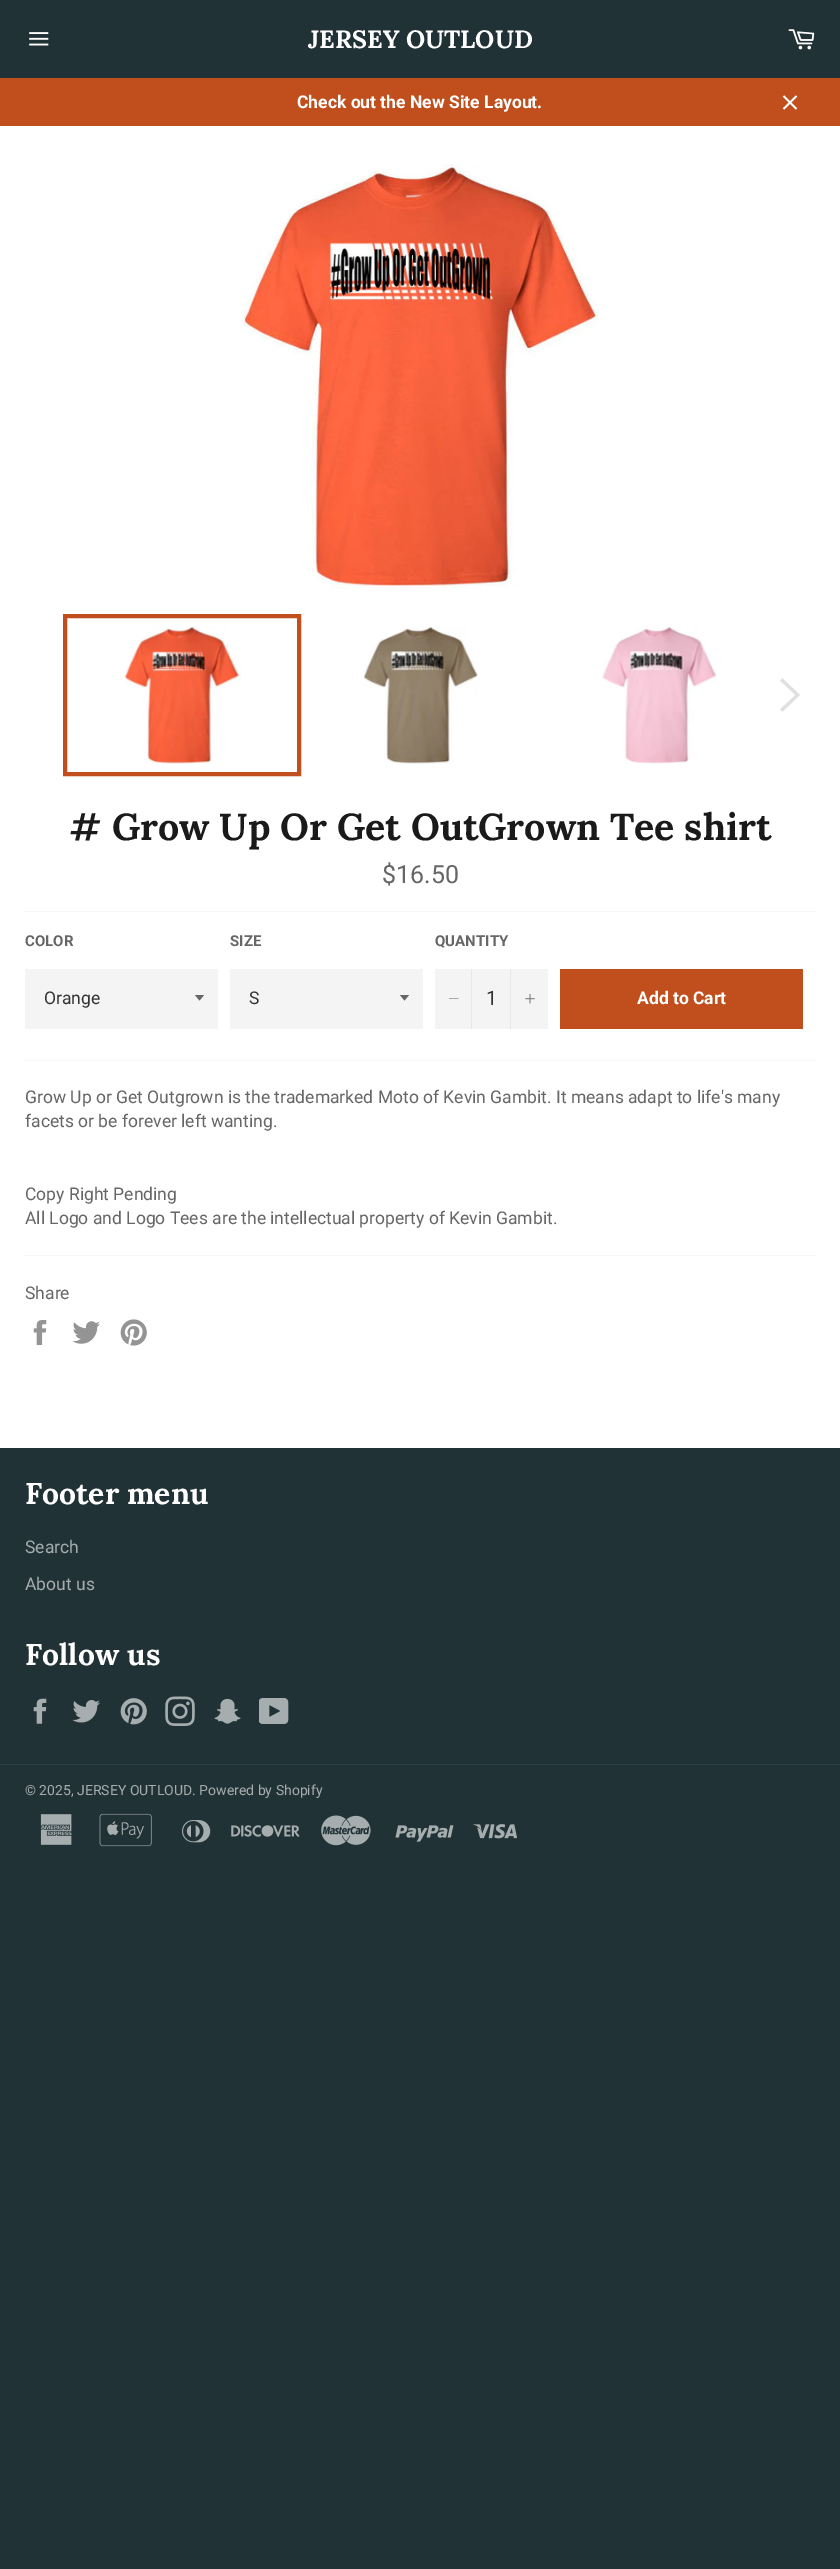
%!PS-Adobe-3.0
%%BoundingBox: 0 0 840 2569
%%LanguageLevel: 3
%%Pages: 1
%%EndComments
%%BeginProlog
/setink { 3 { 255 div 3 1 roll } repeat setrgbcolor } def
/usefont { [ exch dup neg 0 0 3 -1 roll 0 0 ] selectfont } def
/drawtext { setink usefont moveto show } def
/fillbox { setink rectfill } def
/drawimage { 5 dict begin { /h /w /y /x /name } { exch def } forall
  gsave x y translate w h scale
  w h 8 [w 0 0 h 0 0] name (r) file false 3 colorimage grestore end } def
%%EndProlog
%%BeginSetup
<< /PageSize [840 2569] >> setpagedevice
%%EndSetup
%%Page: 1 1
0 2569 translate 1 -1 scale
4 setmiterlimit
0 0 840 2569 33 50 54 fillbox
(assets/img1.rgb) 29 32 20 14 drawimage
(JERSEY OUTLOUD) 308 48 /Lora-Bold 25 255 255 255 drawtext
(assets/img2.rgb) 788 29 27 21 drawimage
0 78 840 48 192 79 29 fillbox
(Check out the New Site Layout.) 297 108 /Roboto-Bold 17.5 255 255 255 drawtext
(assets/img3.rgb) 782 95 16 15 drawimage
0 126 840 1322 255 255 255 fillbox
(assets/img4.rgb) 241 164 358 425 drawimage
(assets/img5.rgb) 124 626 118 138 drawimage
192 79 29 setink
4 setlinewidth
65 616 234 158 rectstroke
(assets/img6.rgb) 363 626 115 138 drawimage
(assets/img7.rgb) 602 626 115 138 drawimage
224 224 224 setink
780 680.5 moveto 782.5 678.5 lineto 800 695 lineto 782.5 711.5 lineto 780 709.5 lineto 795.5 695 lineto closepath fill
(# Grow Up Or Get OutGrown Tee shirt) 69 840 /Lora-Bold 37.5 26 26 26 drawtext
($16.50) 382 883 /Roboto-Regular 25 102 102 102 drawtext
25 911 790 1 247 247 247 fillbox
(COLOR) 25 946 /Roboto-Bold 15 102 102 102 drawtext
25 969 193 60 244 244 244 fillbox
102 102 102 setink
195 995 moveto 199.5 1000.5 lineto 204 995 lineto closepath fill
(Orange) 44 1004 /Roboto-Regular 17.5 51 51 51 drawtext
(SIZE) 230 946 /Roboto-Bold 15 102 102 102 drawtext
230 969 193 60 244 244 244 fillbox
102 102 102 setink
400 995 moveto 404.5 1000.5 lineto 409 995 lineto closepath fill
(S) 249 1004 /Roboto-Regular 17.5 51 51 51 drawtext
(QUANTITY) 435 946 /Roboto-Bold 15 102 102 102 drawtext
435 969 113 60 244 244 244 fillbox
471 969 1 60 231 231 231 fillbox
102 102 102 setink
458.5 998.5 moveto 458.5 999 lineto 449 999 lineto 449 998.5 lineto closepath eofill
(1) 486 1005 /Roboto-Regular 20 51 51 51 drawtext
510 969 1 60 231 231 231 fillbox
(assets/img8.rgb) 525 994 10 10 drawimage
560 969 243 60 192 79 29 fillbox
(Add to Cart) 637 1004 /Roboto-Bold 17.5 255 255 255 drawtext
25 1060 790 1 247 247 247 fillbox
(Grow Up or Get Outgrown is the trademarked Moto of Kevin Gambit. It means adapt to life's many) 25 1103 /Roboto-Regular 17.5 102 102 102 drawtext
(facets or be forever left wanting.) 25 1127 /Roboto-Regular 17.5 102 102 102 drawtext
(Copy Right Pending) 25 1200 /Roboto-Regular 17.5 102 102 102 drawtext
(All Logo and Logo Tees are the intellectual property of Kevin Gambit.) 25 1224 /Roboto-Regular 17.5 102 102 102 drawtext
25 1255 790 1 247 247 247 fillbox
(Share) 25 1299 /Roboto-Regular 17.5 102 102 102 drawtext
(assets/img9.rgb) 33 1320 14 25 drawimage
(assets/img10.rgb) 72 1321 28 23 drawimage
(assets/img11.rgb) 120 1319 27 27 drawimage
(Footer menu) 25 1504 /Lora-Bold 30 255 255 255 drawtext
(Search) 25 1553 /Roboto-Regular 17.5 166 173 175 drawtext
(About us) 25 1590 /Roboto-Regular 17.5 166 173 175 drawtext
(Follow us) 25 1665 /Lora-Bold 30 255 255 255 drawtext
(assets/img12.rgb) 33 1698 14 26 drawimage
(assets/img13.rgb) 72 1700 28 23 drawimage
(assets/img14.rgb) 120 1698 27 27 drawimage
(assets/img15.rgb) 165 1696 30 30 drawimage
(assets/img16.rgb) 214 1698 27 26 drawimage
(assets/img17.rgb) 259 1698 30 26 drawimage
0 1764 840 1 43 65 70 fillbox
(© 2025, JERSEY OUTLOUD. Powered by Shopify) 25 1795 /Roboto-Regular 14 166 173 175 drawtext
(assets/img18.rgb) 40 1814 32 31 drawimage
(assets/img19.rgb) 99 1813 53 34 drawimage
(assets/img20.rgb) 182 1820 29 23 drawimage
(assets/img21.rgb) 231 1825 69 12 drawimage
(assets/img22.rgb) 321 1815 50 31 drawimage
(assets/img23.rgb) 395 1825 59 17 drawimage
(assets/img24.rgb) 473 1824 44 15 drawimage
showpage
%%EOF
